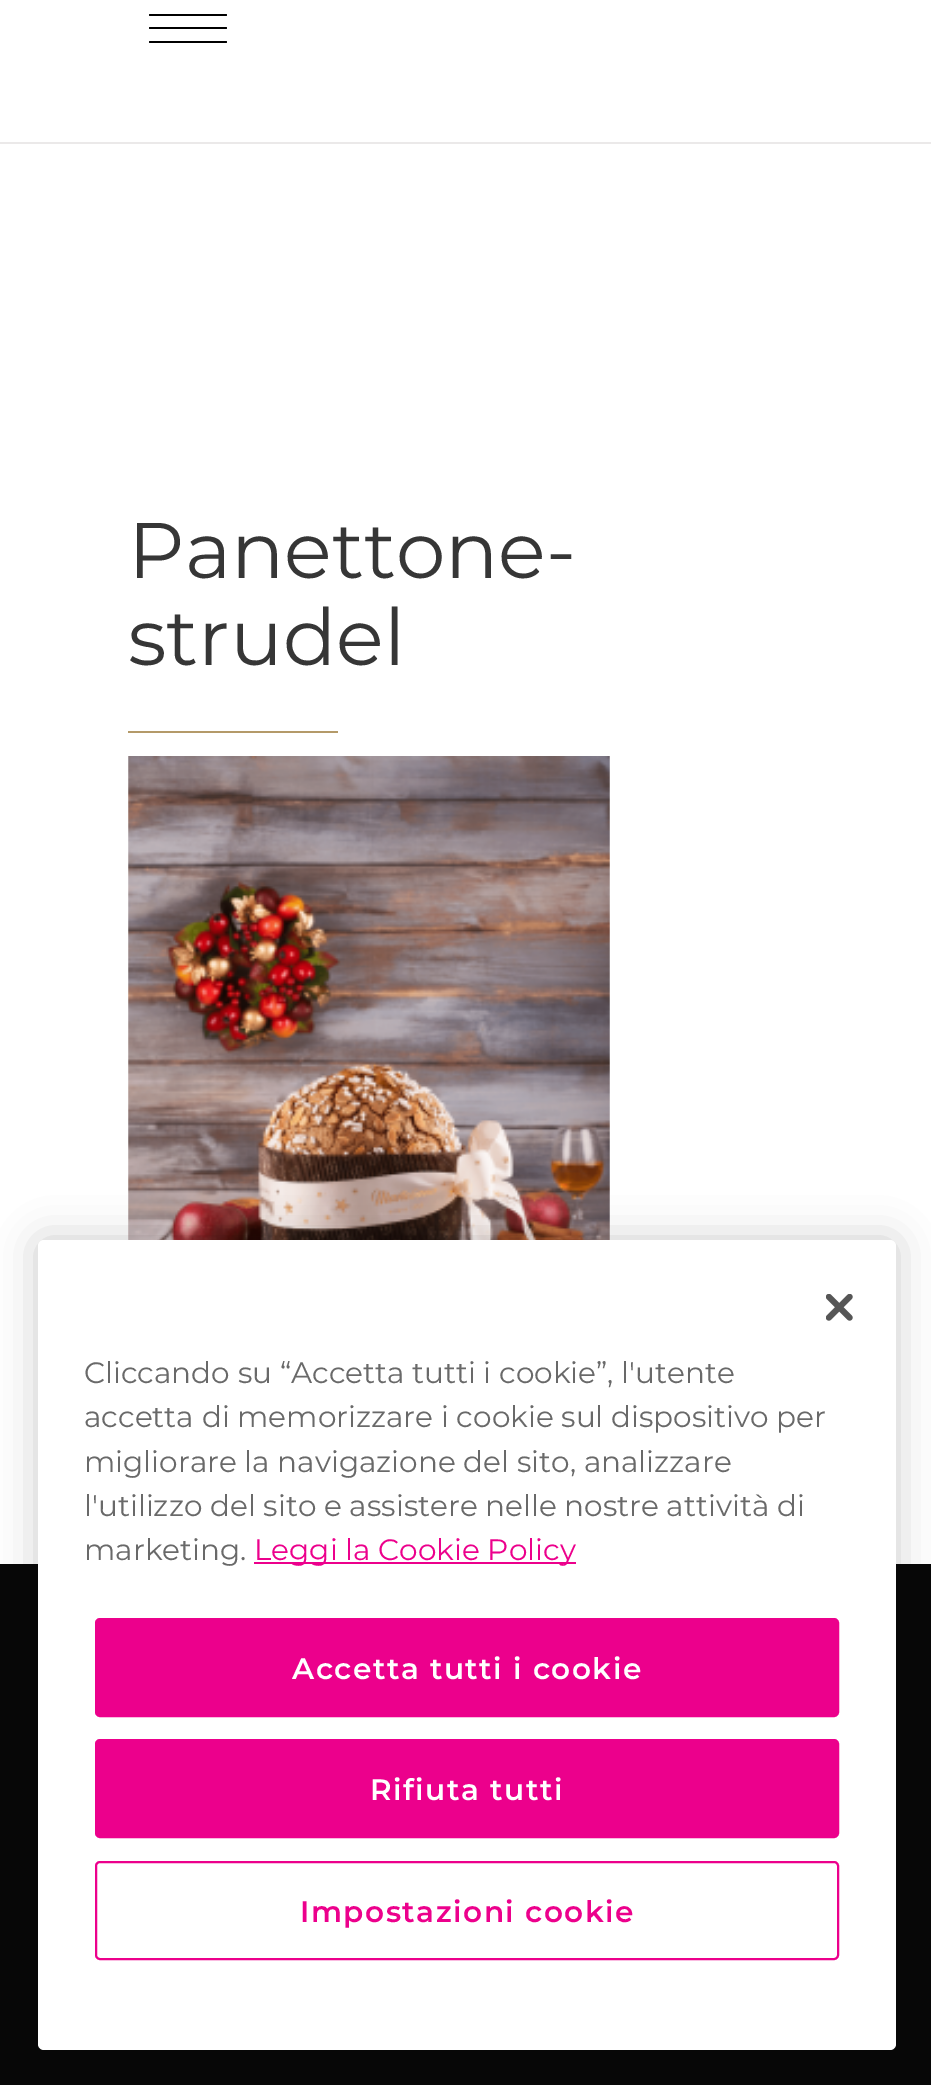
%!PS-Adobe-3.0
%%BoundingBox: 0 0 931 2085
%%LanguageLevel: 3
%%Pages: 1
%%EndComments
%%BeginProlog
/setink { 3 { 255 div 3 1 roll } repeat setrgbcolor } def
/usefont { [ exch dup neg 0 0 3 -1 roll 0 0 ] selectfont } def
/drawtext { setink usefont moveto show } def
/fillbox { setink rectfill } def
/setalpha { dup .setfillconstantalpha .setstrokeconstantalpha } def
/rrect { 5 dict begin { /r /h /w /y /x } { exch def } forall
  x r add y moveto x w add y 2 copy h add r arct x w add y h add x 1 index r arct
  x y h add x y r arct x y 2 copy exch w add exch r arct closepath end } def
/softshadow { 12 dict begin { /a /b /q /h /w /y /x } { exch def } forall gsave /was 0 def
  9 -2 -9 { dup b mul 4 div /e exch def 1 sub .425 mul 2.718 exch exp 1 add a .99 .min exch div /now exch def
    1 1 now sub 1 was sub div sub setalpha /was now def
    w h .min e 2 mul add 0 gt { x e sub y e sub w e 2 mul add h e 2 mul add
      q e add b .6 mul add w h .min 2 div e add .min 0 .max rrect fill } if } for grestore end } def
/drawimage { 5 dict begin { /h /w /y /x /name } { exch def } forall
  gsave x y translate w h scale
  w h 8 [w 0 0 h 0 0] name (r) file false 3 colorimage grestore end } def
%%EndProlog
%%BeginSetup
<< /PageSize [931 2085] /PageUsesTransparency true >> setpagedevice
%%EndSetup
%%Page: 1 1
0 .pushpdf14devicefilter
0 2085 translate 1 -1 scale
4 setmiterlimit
0 0 931 2085 255 255 255 fillbox
0 142 931 2 235 233 233 fillbox
0 0 0 setink
149 14 78 2 1 rrect fill
149 27 78 2 1 rrect fill
149 41 78 2 1 rrect fill
(Panettone-) 128 578 /Montserrat-Regular 78.75 54 54 54 drawtext
(strudel) 128 665 /Montserrat-Regular 78.75 54 54 54 drawtext
128 731 210 2 180 154 105 fillbox
(assets/img1.rgb) 128 756 482 484 drawimage
0 1564 931 521 7 7 7 fillbox
0 0 0 setink
38 1240 858 810 6 20 0.2 softshadow
255 255 255 setink
38 1240 858 810 6 rrect fill
(assets/img2.rgb) 826 1294 27 27 drawimage
(Cliccando su “Accetta tutti i cookie”, l'utente) 84 1383 /Montserrat-Regular 29.5 105 105 105 drawtext
(accetta di memorizzare i cookie sul dispositivo per) 84 1427 /Montserrat-Regular 29.5 105 105 105 drawtext
(migliorare la navigazione del sito, analizzare) 84 1472 /Montserrat-Regular 29.5 105 105 105 drawtext
(l'utilizzo del sito e assistere nelle nostre attività di) 84 1516 /Montserrat-Regular 29.5 105 105 105 drawtext
(marketing.) 84 1560 /Montserrat-Regular 29.5 105 105 105 drawtext
254 1562 322 2 236 0 140 fillbox
(Leggi la Cookie Policy) 254 1560 /Montserrat-Regular 29.5 236 0 140 drawtext
96 1619 742 97 4 rrect gsave fill grestore
2 setlinewidth
stroke
/Montserrat-SemiBold 29.5 usefont
255 255 255 setink
292 1679 moveto 1.5 0 (Accetta tutti i cookie) ashow
236 0 140 setink
96 1740 742 97 4 rrect gsave fill grestore
stroke
255 255 255 setink
370 1800 moveto 1.5 0 (Rifiuta tutti) ashow
236 0 140 setink
96 1862 742 97 4 rrect stroke
300 1922 moveto 1.5 0 (Impostazioni cookie) ashow
.poppdf14devicefilter showpage
%%EOF
